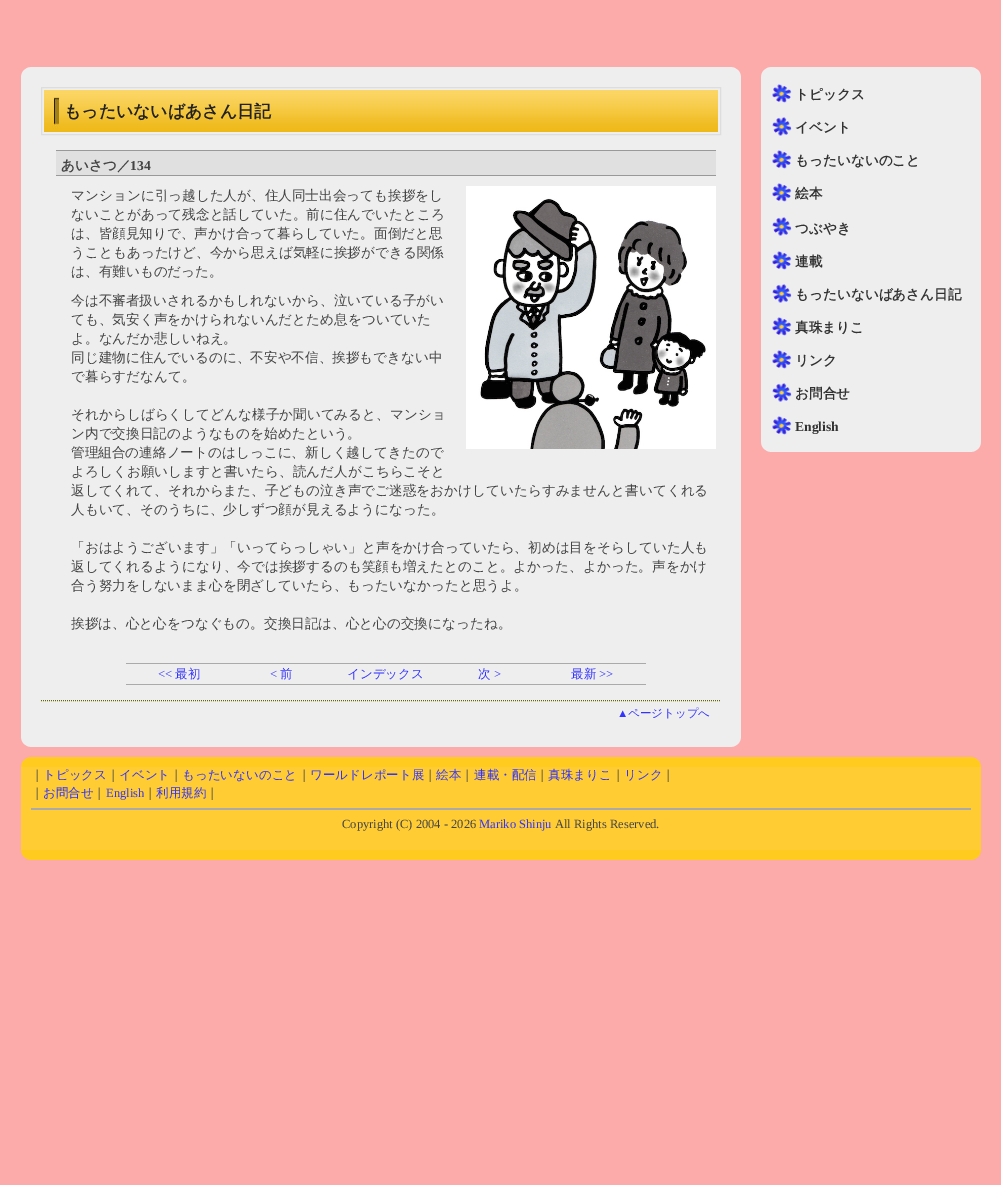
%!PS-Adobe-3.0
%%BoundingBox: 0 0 1001 1185
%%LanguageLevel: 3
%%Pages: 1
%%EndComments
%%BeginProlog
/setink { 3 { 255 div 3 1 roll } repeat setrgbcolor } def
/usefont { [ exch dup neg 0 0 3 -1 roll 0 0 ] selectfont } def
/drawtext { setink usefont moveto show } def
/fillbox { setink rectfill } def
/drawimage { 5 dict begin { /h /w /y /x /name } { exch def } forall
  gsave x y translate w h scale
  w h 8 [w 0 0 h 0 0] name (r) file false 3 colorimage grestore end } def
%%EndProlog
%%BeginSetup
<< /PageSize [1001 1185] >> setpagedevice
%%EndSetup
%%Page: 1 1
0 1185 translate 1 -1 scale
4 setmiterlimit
0 0 1001 1185 252 170 170 fillbox
21 76 720 662 238 238 238 fillbox
(assets/img1.rgb) 21 67 720 9 drawimage
221 221 221 setink
41.5 87.5 679 47 rectstroke
(assets/img2.rgb) 44 90 674 42 drawimage
(もったいないばあさん日記) 64 117 /WenQuanYiZenHei-Bold 16.9 34 34 34 drawtext
56 151 660 24 224 224 224 fillbox
56 150 660 1 153 153 153 fillbox
56 175 660 1 153 153 153 fillbox
(あいさつ／) 61 170 /WenQuanYiZenHei-Bold 13.6 68 68 68 drawtext
(134) 130 170 /LiberationSerif-Bold 13.6 68 68 68 drawtext
(マンションに引っ越した人が、住人同士出会っても挨拶をし) 71 200 /WenQuanYiZenHei-Medium 13.6 68 68 68 drawtext
(ないことがあって残念と話していた。前に住んでいたところ) 71 219 /WenQuanYiZenHei-Medium 13.6 68 68 68 drawtext
(は、皆顔見知りで、声かけ合って暮らしていた。面倒だと思) 71 238 /WenQuanYiZenHei-Medium 13.6 68 68 68 drawtext
(うこともあったけど、今から思えば気軽に挨拶ができる関係) 71 257 /WenQuanYiZenHei-Medium 13.6 68 68 68 drawtext
(は、有難いものだった。) 71 276 /WenQuanYiZenHei-Medium 13.6 68 68 68 drawtext
(assets/img3.rgb) 466 186 250 263 drawimage
(今は不審者扱いされるかもしれないから、泣いている子がい) 71 305 /WenQuanYiZenHei-Medium 13.6 68 68 68 drawtext
(ても、気安く声をかけられないんだとため息をついていた) 71 324 /WenQuanYiZenHei-Medium 13.6 68 68 68 drawtext
(よ。なんだか悲しいねえ。) 71 343 /WenQuanYiZenHei-Medium 13.6 68 68 68 drawtext
(同じ建物に住んでいるのに、不安や不信、挨拶もできない中) 71 362 /WenQuanYiZenHei-Medium 13.6 68 68 68 drawtext
(で暮らすだなんて。) 71 381 /WenQuanYiZenHei-Medium 13.6 68 68 68 drawtext
(それからしばらくしてどんな様子か聞いてみると、マンショ) 71 419 /WenQuanYiZenHei-Medium 13.6 68 68 68 drawtext
(ン内で交換日記のようなものを始めたという。) 71 438 /WenQuanYiZenHei-Medium 13.6 68 68 68 drawtext
(管理組合の連絡ノートのはしっこに、新しく越してきたので) 71 457 /WenQuanYiZenHei-Medium 13.6 68 68 68 drawtext
(よろしくお願いしますと書いたら、読んだ人がこちらこそと) 71 476 /WenQuanYiZenHei-Medium 13.6 68 68 68 drawtext
(返してくれて、それからまた、子どもの泣き声でご迷惑をおかけしていたらすみませんと書いてくれる) 71 495 /WenQuanYiZenHei-Medium 13.6 68 68 68 drawtext
(人もいて、そのうちに、少しずつ顔が見えるようになった。) 71 514 /WenQuanYiZenHei-Medium 13.6 68 68 68 drawtext
(「おはようございます」「いってらっしゃい」と声をかけ合っていたら、初めは目をそらしていた人も) 71 552 /WenQuanYiZenHei-Medium 13.6 68 68 68 drawtext
(返してくれるようになり、今では挨拶するのも笑顔も増えたとのこと。よかった、よかった。声をかけ) 71 571 /WenQuanYiZenHei-Medium 13.6 68 68 68 drawtext
(合う努力をしないまま心を閉ざしていたら、もったいなかったと思うよ。) 71 590 /WenQuanYiZenHei-Medium 13.6 68 68 68 drawtext
(挨拶は、心と心をつなぐもの。交換日記は、心と心の交換になったね。) 71 628 /WenQuanYiZenHei-Medium 13.6 68 68 68 drawtext
126 663 520 1 170 170 170 fillbox
126 684 520 1 170 170 170 fillbox
(<<) 158 678 /LiberationSerif-Regular 12.5 51 51 255 drawtext
(最初) 175 678 /WenQuanYiZenHei-Medium 12.5 51 51 255 drawtext
(<) 270 678 /LiberationSerif-Regular 12.5 51 51 255 drawtext
(前) 280 678 /WenQuanYiZenHei-Medium 12.5 51 51 255 drawtext
(インデックス) 347 678 /WenQuanYiZenHei-Medium 12.5 51 51 255 drawtext
(次) 478 678 /WenQuanYiZenHei-Medium 12.5 51 51 255 drawtext
(>) 494 678 /LiberationSerif-Regular 12.5 51 51 255 drawtext
(最新) 571 678 /WenQuanYiZenHei-Medium 12.5 51 51 255 drawtext
(>>) 599 678 /LiberationSerif-Regular 12.5 51 51 255 drawtext
102 102 0 setink
[1 1] 0 setdash
41 700.5 moveto 721 700.5 lineto stroke
(▲) 617 717 /LiberationSerif-Regular 11.5 51 51 255 drawtext
(ページトップへ) 628 717 /WenQuanYiZenHei-Medium 11.5 51 51 255 drawtext
(assets/img4.rgb) 21 738 720 9 drawimage
(assets/img5.rgb) 761 67 220 10 drawimage
761 77 220 365 238 238 238 fillbox
(assets/img6.rgb) 772 84 20 19 drawimage
(トピックス) 795 99 /WenQuanYiZenHei-Bold 13.6 51 51 51 drawtext
(assets/img7.rgb) 772 117 20 19 drawimage
(イベント) 795 132 /WenQuanYiZenHei-Bold 13.6 51 51 51 drawtext
(assets/img6.rgb) 772 150 20 19 drawimage
(もったいないのこと) 795 165 /WenQuanYiZenHei-Bold 13.6 51 51 51 drawtext
(assets/img6.rgb) 772 183 20 19 drawimage
(絵本) 795 198 /WenQuanYiZenHei-Bold 13.6 51 51 51 drawtext
(assets/img7.rgb) 772 217 20 19 drawimage
(つぶやき) 795 233 /WenQuanYiZenHei-Bold 13.6 51 51 51 drawtext
(assets/img6.rgb) 772 251 20 19 drawimage
(連載) 795 266 /WenQuanYiZenHei-Bold 13.6 51 51 51 drawtext
(assets/img7.rgb) 772 284 20 19 drawimage
(もったいないばあさん日記) 795 299 /WenQuanYiZenHei-Bold 13.6 51 51 51 drawtext
(assets/img6.rgb) 772 317 20 19 drawimage
(真珠まりこ) 795 332 /WenQuanYiZenHei-Bold 13.6 51 51 51 drawtext
(assets/img6.rgb) 772 350 20 19 drawimage
(リンク) 795 365 /WenQuanYiZenHei-Bold 13.6 51 51 51 drawtext
(assets/img7.rgb) 772 383 20 19 drawimage
(お問合せ) 795 398 /WenQuanYiZenHei-Bold 13.6 51 51 51 drawtext
(assets/img6.rgb) 772 416 20 19 drawimage
(English) 795 431 /LiberationSerif-Bold 13.6 51 51 51 drawtext
(assets/img8.rgb) 761 442 220 10 drawimage
(assets/img9.rgb) 21 757 960 10 drawimage
21 767 960 83 255 204 51 fillbox
(｜) 31 779 /WenQuanYiZenHei-Medium 12.5 68 68 68 drawtext
(トピックス) 43 779 /WenQuanYiZenHei-Medium 12.5 51 51 255 drawtext
(｜) 107 779 /WenQuanYiZenHei-Medium 12.5 68 68 68 drawtext
(イベント) 119 779 /WenQuanYiZenHei-Medium 12.5 51 51 255 drawtext
(｜) 170 779 /WenQuanYiZenHei-Medium 12.5 68 68 68 drawtext
(もったいないのこと) 182 779 /WenQuanYiZenHei-Medium 12.5 51 51 255 drawtext
(｜) 298 779 /WenQuanYiZenHei-Medium 12.5 68 68 68 drawtext
(ワールドレポート展) 310 779 /WenQuanYiZenHei-Medium 12.5 51 51 255 drawtext
(｜) 424 779 /WenQuanYiZenHei-Medium 12.5 68 68 68 drawtext
(絵本) 436 779 /WenQuanYiZenHei-Medium 12.5 51 51 255 drawtext
(｜) 461 779 /WenQuanYiZenHei-Medium 12.5 68 68 68 drawtext
(連載・配信) 474 779 /WenQuanYiZenHei-Medium 12.5 51 51 255 drawtext
(｜) 536 779 /WenQuanYiZenHei-Medium 12.5 68 68 68 drawtext
(真珠まりこ) 548 779 /WenQuanYiZenHei-Medium 12.5 51 51 255 drawtext
(｜) 612 779 /WenQuanYiZenHei-Medium 12.5 68 68 68 drawtext
(リンク) 624 779 /WenQuanYiZenHei-Medium 12.5 51 51 255 drawtext
(｜) 662 779 /WenQuanYiZenHei-Medium 12.5 68 68 68 drawtext
(｜) 31 797 /WenQuanYiZenHei-Medium 12.5 68 68 68 drawtext
(お問合せ) 43 797 /WenQuanYiZenHei-Medium 12.5 51 51 255 drawtext
(｜) 93 797 /WenQuanYiZenHei-Medium 12.5 68 68 68 drawtext
(English) 106 797 /LiberationSerif-Regular 12.5 51 51 255 drawtext
(｜) 144 797 /WenQuanYiZenHei-Medium 12.5 68 68 68 drawtext
(利用規約) 156 797 /WenQuanYiZenHei-Medium 12.5 51 51 255 drawtext
(｜) 206 797 /WenQuanYiZenHei-Medium 12.5 68 68 68 drawtext
31 808 940 2 170 170 170 fillbox
(Copyright \(C\) 2004 - 2026) 342 828 /LiberationSerif-Regular 12.5 68 68 68 drawtext
(Mariko Shinju) 479 828 /LiberationSerif-Regular 12.5 51 51 255 drawtext
(All Rights Reserved.) 555 828 /LiberationSerif-Regular 12.5 68 68 68 drawtext
(assets/img10.rgb) 21 850 960 10 drawimage
showpage
%%EOF
